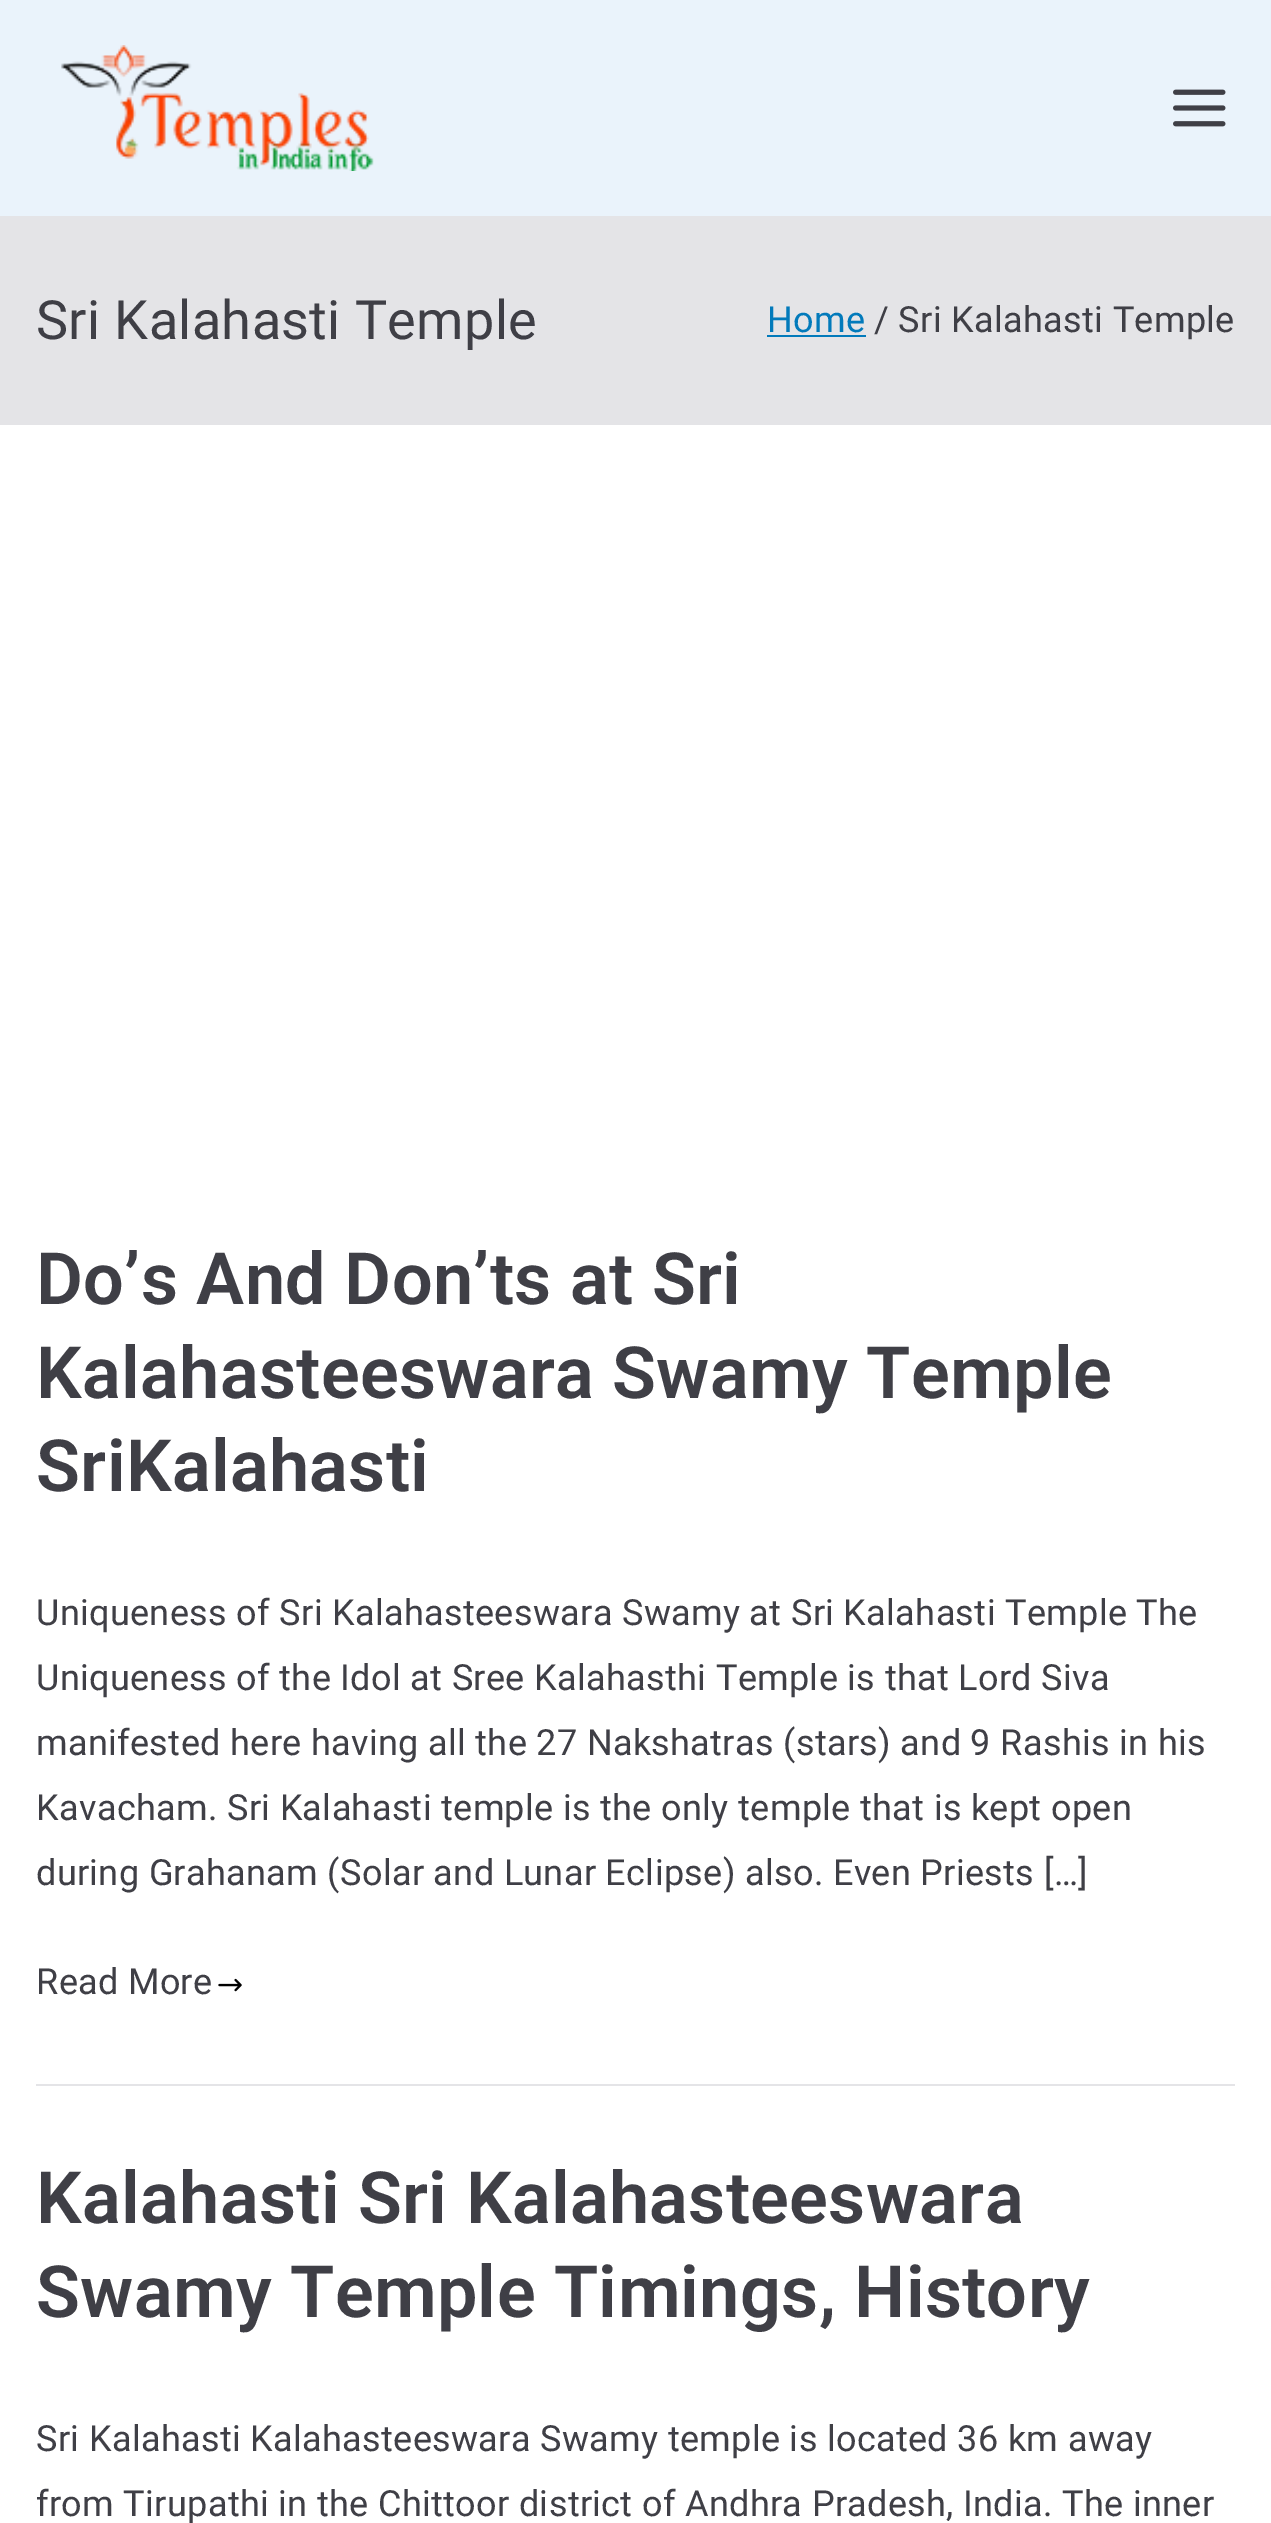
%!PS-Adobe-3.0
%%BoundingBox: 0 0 1271 2523
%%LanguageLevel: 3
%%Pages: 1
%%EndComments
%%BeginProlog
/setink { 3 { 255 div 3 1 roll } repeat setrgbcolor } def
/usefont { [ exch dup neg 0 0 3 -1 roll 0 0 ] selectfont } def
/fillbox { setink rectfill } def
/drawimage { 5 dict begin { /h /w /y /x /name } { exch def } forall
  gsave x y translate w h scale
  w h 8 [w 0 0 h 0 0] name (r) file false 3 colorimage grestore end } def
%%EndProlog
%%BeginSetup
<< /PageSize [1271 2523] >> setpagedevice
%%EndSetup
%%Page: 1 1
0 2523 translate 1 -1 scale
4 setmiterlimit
0 0 1271 2523 228 228 231 fillbox
0 0 1271 216 234 243 251 fillbox
(assets/img1.rgb) 61 45 313 126 drawimage
(assets/img2.rgb) 1173 89 53 38 drawimage
/Roboto-Regular 54 usefont
63 63 70 setink
36 339 moveto 0.35 0 (Sri Kalahasti Temple) ashow
/Roboto-Regular 36 usefont
2 122 187 setink
767 332 moveto 0.35 0 (Home) ashow
767 335 99 2 2 122 187 fillbox
63 63 70 setink
874 332 moveto 0.35 0 (/ Sri Kalahasti Temple) ashow
0 425 1271 2098 255 255 255 fillbox
36 2084 1199 2 228 228 231 fillbox
/Roboto-SemiBold 72 usefont
63 63 70 setink
36 1304 moveto 0.35 0 (Do’s And Don’ts at Sri) ashow
36 1398 moveto 0.35 0 (Kalahasteeswara Swamy Temple) ashow
36 1491 moveto 0.35 0 (SriKalahasti) ashow
/Roboto-Regular 36 usefont
36 1625 moveto 0.35 0 (Uniqueness of Sri Kalahasteeswara Swamy at Sri Kalahasti Temple The) ashow
36 1690 moveto 0.35 0 (Uniqueness of the Idol at Sree Kalahasthi Temple is that Lord Siva) ashow
36 1755 moveto 0.35 0 (manifested here having all the 27 Nakshatras \(stars\) and 9 Rashis in his) ashow
36 1820 moveto 0.35 0 (Kavacham. Sri Kalahasti temple is the only temple that is kept open) ashow
36 1885 moveto 0.35 0 (during Grahanam \(Solar and Lunar Eclipse\) also. Even Priests […]) ashow
36 1994 moveto 0.35 0 (Read More) ashow
(assets/img3.rgb) 218 1978 24 14 drawimage
/Roboto-SemiBold 72 usefont
36 2223 moveto 0.35 0 (Kalahasti Sri Kalahasteeswara) ashow
36 2317 moveto 0.35 0 (Swamy Temple Timings, History) ashow
/Roboto-Regular 36 usefont
36 2451 moveto 0.35 0 (Sri Kalahasti Kalahasteeswara Swamy temple is located 36 km away) ashow
36 2516 moveto 0.35 0 (from Tirupathi in the Chittoor district of Andhra Pradesh, India. The inner) ashow
showpage
%%EOF
